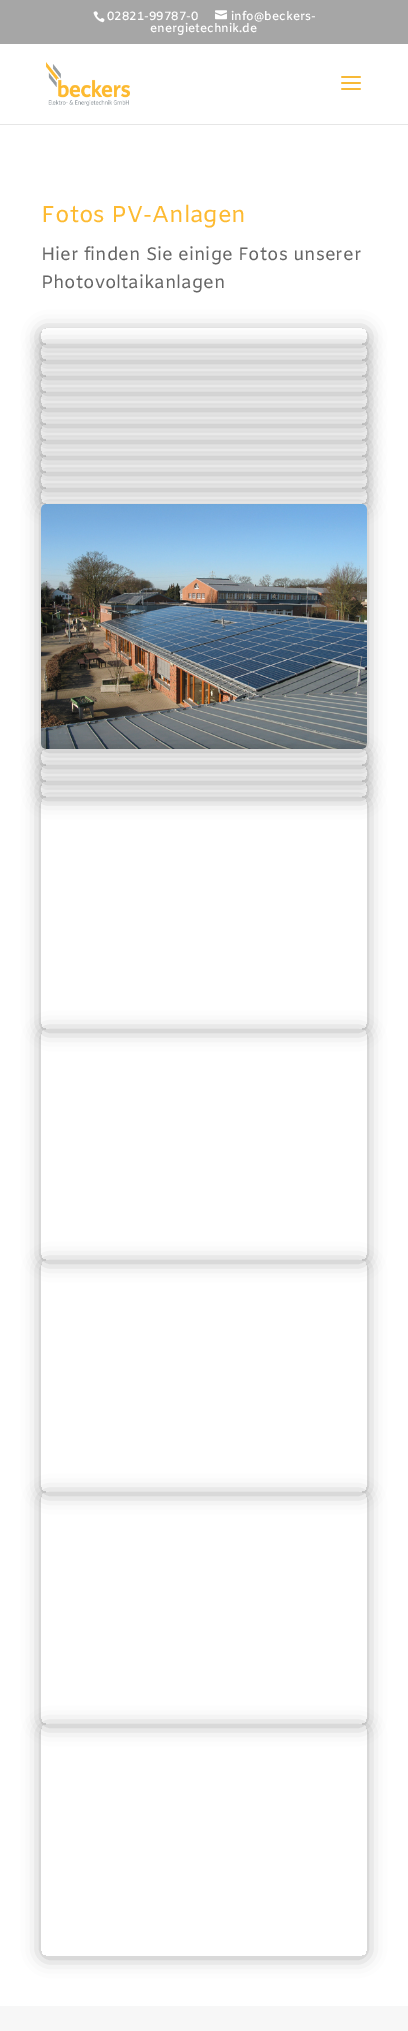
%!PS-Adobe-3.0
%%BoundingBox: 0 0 408 2031
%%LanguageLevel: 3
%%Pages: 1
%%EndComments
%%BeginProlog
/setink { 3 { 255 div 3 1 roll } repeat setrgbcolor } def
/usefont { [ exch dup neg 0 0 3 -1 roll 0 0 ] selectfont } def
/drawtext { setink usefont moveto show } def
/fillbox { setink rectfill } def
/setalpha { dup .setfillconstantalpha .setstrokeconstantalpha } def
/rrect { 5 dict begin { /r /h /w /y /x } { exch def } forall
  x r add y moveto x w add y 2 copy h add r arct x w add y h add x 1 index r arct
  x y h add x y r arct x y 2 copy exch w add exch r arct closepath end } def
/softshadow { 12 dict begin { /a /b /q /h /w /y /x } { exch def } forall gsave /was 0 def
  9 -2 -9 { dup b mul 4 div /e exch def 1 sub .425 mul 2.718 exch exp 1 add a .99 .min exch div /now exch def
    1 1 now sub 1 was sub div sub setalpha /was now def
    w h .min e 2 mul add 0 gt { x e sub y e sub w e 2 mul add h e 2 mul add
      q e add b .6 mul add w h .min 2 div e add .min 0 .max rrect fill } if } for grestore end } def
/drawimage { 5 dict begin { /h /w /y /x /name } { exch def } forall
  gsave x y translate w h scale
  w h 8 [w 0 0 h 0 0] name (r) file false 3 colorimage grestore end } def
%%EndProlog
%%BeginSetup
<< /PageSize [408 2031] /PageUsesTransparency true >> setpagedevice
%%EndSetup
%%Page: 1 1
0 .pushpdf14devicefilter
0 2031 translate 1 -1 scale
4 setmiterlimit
0 0 408 2031 255 255 255 fillbox
0 0 408 44 166 166 166 fillbox
(assets/img1.rgb) 93 11 12 12 drawimage
(02821-99787-0) 107 20 /Amiko-SemiBold 12 255 255 255 drawtext
(assets/img2.rgb) 215 10 12 10 drawimage
(info@beckers-) 231 20 /Amiko-SemiBold 12 255 255 255 drawtext
(energietechnik.de) 150 32 /Amiko-SemiBold 12 255 255 255 drawtext
0 124 408 1 230 230 230 fillbox
(assets/img3.rgb) 46 62 84 44 drawimage
(assets/img4.rgb) 341 76 20 14 drawimage
(Fotos PV-Anlagen) 41 222 /Amiko-Regular 23 253 186 49 drawtext
(Hier finden Sie einige Fotos unserer) 41 260 /Amiko-Regular 18 102 102 102 drawtext
(Photovoltaikanlagen) 41 288 /Amiko-Regular 18 102 102 102 drawtext
gsave
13 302 moveto 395 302 lineto 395 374 lineto 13 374 lineto closepath 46 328 moveto 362 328 lineto 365 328 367 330 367 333 curveto 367 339 lineto 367 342 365 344 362 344 curveto 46 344 lineto 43 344 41 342 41 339 curveto 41 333 lineto 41 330 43 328 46 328 curveto closepath eoclip newpath
0 0 0 setink
41 330 326 16 5 9 0.3 softshadow
grestore
gsave
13 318 moveto 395 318 lineto 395 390 lineto 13 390 lineto closepath 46 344 moveto 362 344 lineto 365 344 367 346 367 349 curveto 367 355 lineto 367 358 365 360 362 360 curveto 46 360 lineto 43 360 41 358 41 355 curveto 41 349 lineto 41 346 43 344 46 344 curveto closepath eoclip newpath
0 0 0 setink
41 346 326 16 5 9 0.3 softshadow
grestore
gsave
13 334 moveto 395 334 lineto 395 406 lineto 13 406 lineto closepath 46 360 moveto 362 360 lineto 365 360 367 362 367 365 curveto 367 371 lineto 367 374 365 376 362 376 curveto 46 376 lineto 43 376 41 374 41 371 curveto 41 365 lineto 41 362 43 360 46 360 curveto closepath eoclip newpath
0 0 0 setink
41 362 326 16 5 9 0.3 softshadow
grestore
gsave
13 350 moveto 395 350 lineto 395 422 lineto 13 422 lineto closepath 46 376 moveto 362 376 lineto 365 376 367 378 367 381 curveto 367 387 lineto 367 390 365 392 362 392 curveto 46 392 lineto 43 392 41 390 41 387 curveto 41 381 lineto 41 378 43 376 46 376 curveto closepath eoclip newpath
0 0 0 setink
41 378 326 16 5 9 0.3 softshadow
grestore
gsave
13 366 moveto 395 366 lineto 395 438 lineto 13 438 lineto closepath 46 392 moveto 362 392 lineto 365 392 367 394 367 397 curveto 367 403 lineto 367 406 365 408 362 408 curveto 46 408 lineto 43 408 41 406 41 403 curveto 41 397 lineto 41 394 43 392 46 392 curveto closepath eoclip newpath
0 0 0 setink
41 394 326 16 5 9 0.3 softshadow
grestore
gsave
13 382 moveto 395 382 lineto 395 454 lineto 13 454 lineto closepath 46 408 moveto 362 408 lineto 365 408 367 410 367 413 curveto 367 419 lineto 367 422 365 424 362 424 curveto 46 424 lineto 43 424 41 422 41 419 curveto 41 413 lineto 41 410 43 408 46 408 curveto closepath eoclip newpath
0 0 0 setink
41 410 326 16 5 9 0.3 softshadow
grestore
gsave
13 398 moveto 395 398 lineto 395 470 lineto 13 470 lineto closepath 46 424 moveto 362 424 lineto 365 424 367 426 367 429 curveto 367 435 lineto 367 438 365 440 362 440 curveto 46 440 lineto 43 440 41 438 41 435 curveto 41 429 lineto 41 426 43 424 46 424 curveto closepath eoclip newpath
0 0 0 setink
41 426 326 16 5 9 0.3 softshadow
grestore
gsave
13 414 moveto 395 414 lineto 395 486 lineto 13 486 lineto closepath 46 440 moveto 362 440 lineto 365 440 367 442 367 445 curveto 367 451 lineto 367 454 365 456 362 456 curveto 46 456 lineto 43 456 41 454 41 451 curveto 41 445 lineto 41 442 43 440 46 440 curveto closepath eoclip newpath
0 0 0 setink
41 442 326 16 5 9 0.3 softshadow
grestore
gsave
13 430 moveto 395 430 lineto 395 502 lineto 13 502 lineto closepath 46 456 moveto 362 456 lineto 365 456 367 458 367 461 curveto 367 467 lineto 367 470 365 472 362 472 curveto 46 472 lineto 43 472 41 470 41 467 curveto 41 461 lineto 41 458 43 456 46 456 curveto closepath eoclip newpath
0 0 0 setink
41 458 326 16 5 9 0.3 softshadow
grestore
gsave
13 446 moveto 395 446 lineto 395 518 lineto 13 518 lineto closepath 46 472 moveto 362 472 lineto 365 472 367 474 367 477 curveto 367 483 lineto 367 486 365 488 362 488 curveto 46 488 lineto 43 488 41 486 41 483 curveto 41 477 lineto 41 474 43 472 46 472 curveto closepath eoclip newpath
0 0 0 setink
41 474 326 16 5 9 0.3 softshadow
grestore
gsave
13 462 moveto 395 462 lineto 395 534 lineto 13 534 lineto closepath 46 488 moveto 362 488 lineto 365 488 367 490 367 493 curveto 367 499 lineto 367 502 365 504 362 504 curveto 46 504 lineto 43 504 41 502 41 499 curveto 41 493 lineto 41 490 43 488 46 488 curveto closepath eoclip newpath
0 0 0 setink
41 490 326 16 5 9 0.3 softshadow
grestore
0 0 0 setink
41 506 326 245 5 9 0.3 softshadow
(assets/img5.rgb) 41 504 326 245 drawimage
gsave
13 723 moveto 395 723 lineto 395 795 lineto 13 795 lineto closepath 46 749 moveto 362 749 lineto 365 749 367 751 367 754 curveto 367 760 lineto 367 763 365 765 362 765 curveto 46 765 lineto 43 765 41 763 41 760 curveto 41 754 lineto 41 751 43 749 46 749 curveto closepath eoclip newpath
41 751 326 16 5 9 0.3 softshadow
grestore
gsave
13 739 moveto 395 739 lineto 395 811 lineto 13 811 lineto closepath 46 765 moveto 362 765 lineto 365 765 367 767 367 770 curveto 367 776 lineto 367 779 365 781 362 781 curveto 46 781 lineto 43 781 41 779 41 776 curveto 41 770 lineto 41 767 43 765 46 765 curveto closepath eoclip newpath
41 767 326 16 5 9 0.3 softshadow
grestore
gsave
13 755 moveto 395 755 lineto 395 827 lineto 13 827 lineto closepath 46 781 moveto 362 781 lineto 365 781 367 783 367 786 curveto 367 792 lineto 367 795 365 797 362 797 curveto 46 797 lineto 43 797 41 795 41 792 curveto 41 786 lineto 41 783 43 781 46 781 curveto closepath eoclip newpath
41 783 326 16 5 9 0.3 softshadow
grestore
gsave
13 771 moveto 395 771 lineto 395 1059 lineto 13 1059 lineto closepath 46 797 moveto 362 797 lineto 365 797 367 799 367 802 curveto 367 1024 lineto 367 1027 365 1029 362 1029 curveto 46 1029 lineto 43 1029 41 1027 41 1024 curveto 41 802 lineto 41 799 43 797 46 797 curveto closepath eoclip newpath
41 799 326 232 5 9 0.3 softshadow
grestore
gsave
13 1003 moveto 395 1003 lineto 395 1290 lineto 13 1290 lineto closepath 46 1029 moveto 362 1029 lineto 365 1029 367 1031 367 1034 curveto 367 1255 lineto 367 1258 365 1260 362 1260 curveto 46 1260 lineto 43 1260 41 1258 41 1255 curveto 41 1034 lineto 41 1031 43 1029 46 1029 curveto closepath eoclip newpath
41 1031 326 231 5 9 0.3 softshadow
grestore
gsave
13 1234 moveto 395 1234 lineto 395 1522 lineto 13 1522 lineto closepath 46 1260 moveto 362 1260 lineto 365 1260 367 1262 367 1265 curveto 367 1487 lineto 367 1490 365 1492 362 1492 curveto 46 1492 lineto 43 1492 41 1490 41 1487 curveto 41 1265 lineto 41 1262 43 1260 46 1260 curveto closepath eoclip newpath
41 1262 326 232 5 9 0.3 softshadow
grestore
gsave
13 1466 moveto 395 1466 lineto 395 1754 lineto 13 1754 lineto closepath 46 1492 moveto 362 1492 lineto 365 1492 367 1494 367 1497 curveto 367 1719 lineto 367 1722 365 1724 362 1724 curveto 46 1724 lineto 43 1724 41 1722 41 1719 curveto 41 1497 lineto 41 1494 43 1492 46 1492 curveto closepath eoclip newpath
41 1494 326 232 5 9 0.3 softshadow
grestore
gsave
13 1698 moveto 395 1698 lineto 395 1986 lineto 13 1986 lineto closepath 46 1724 moveto 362 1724 lineto 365 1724 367 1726 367 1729 curveto 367 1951 lineto 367 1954 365 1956 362 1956 curveto 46 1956 lineto 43 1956 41 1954 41 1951 curveto 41 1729 lineto 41 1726 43 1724 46 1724 curveto closepath eoclip newpath
41 1726 326 232 5 9 0.3 softshadow
grestore
0 2006 408 25 247 247 247 fillbox
.poppdf14devicefilter showpage
%%EOF
